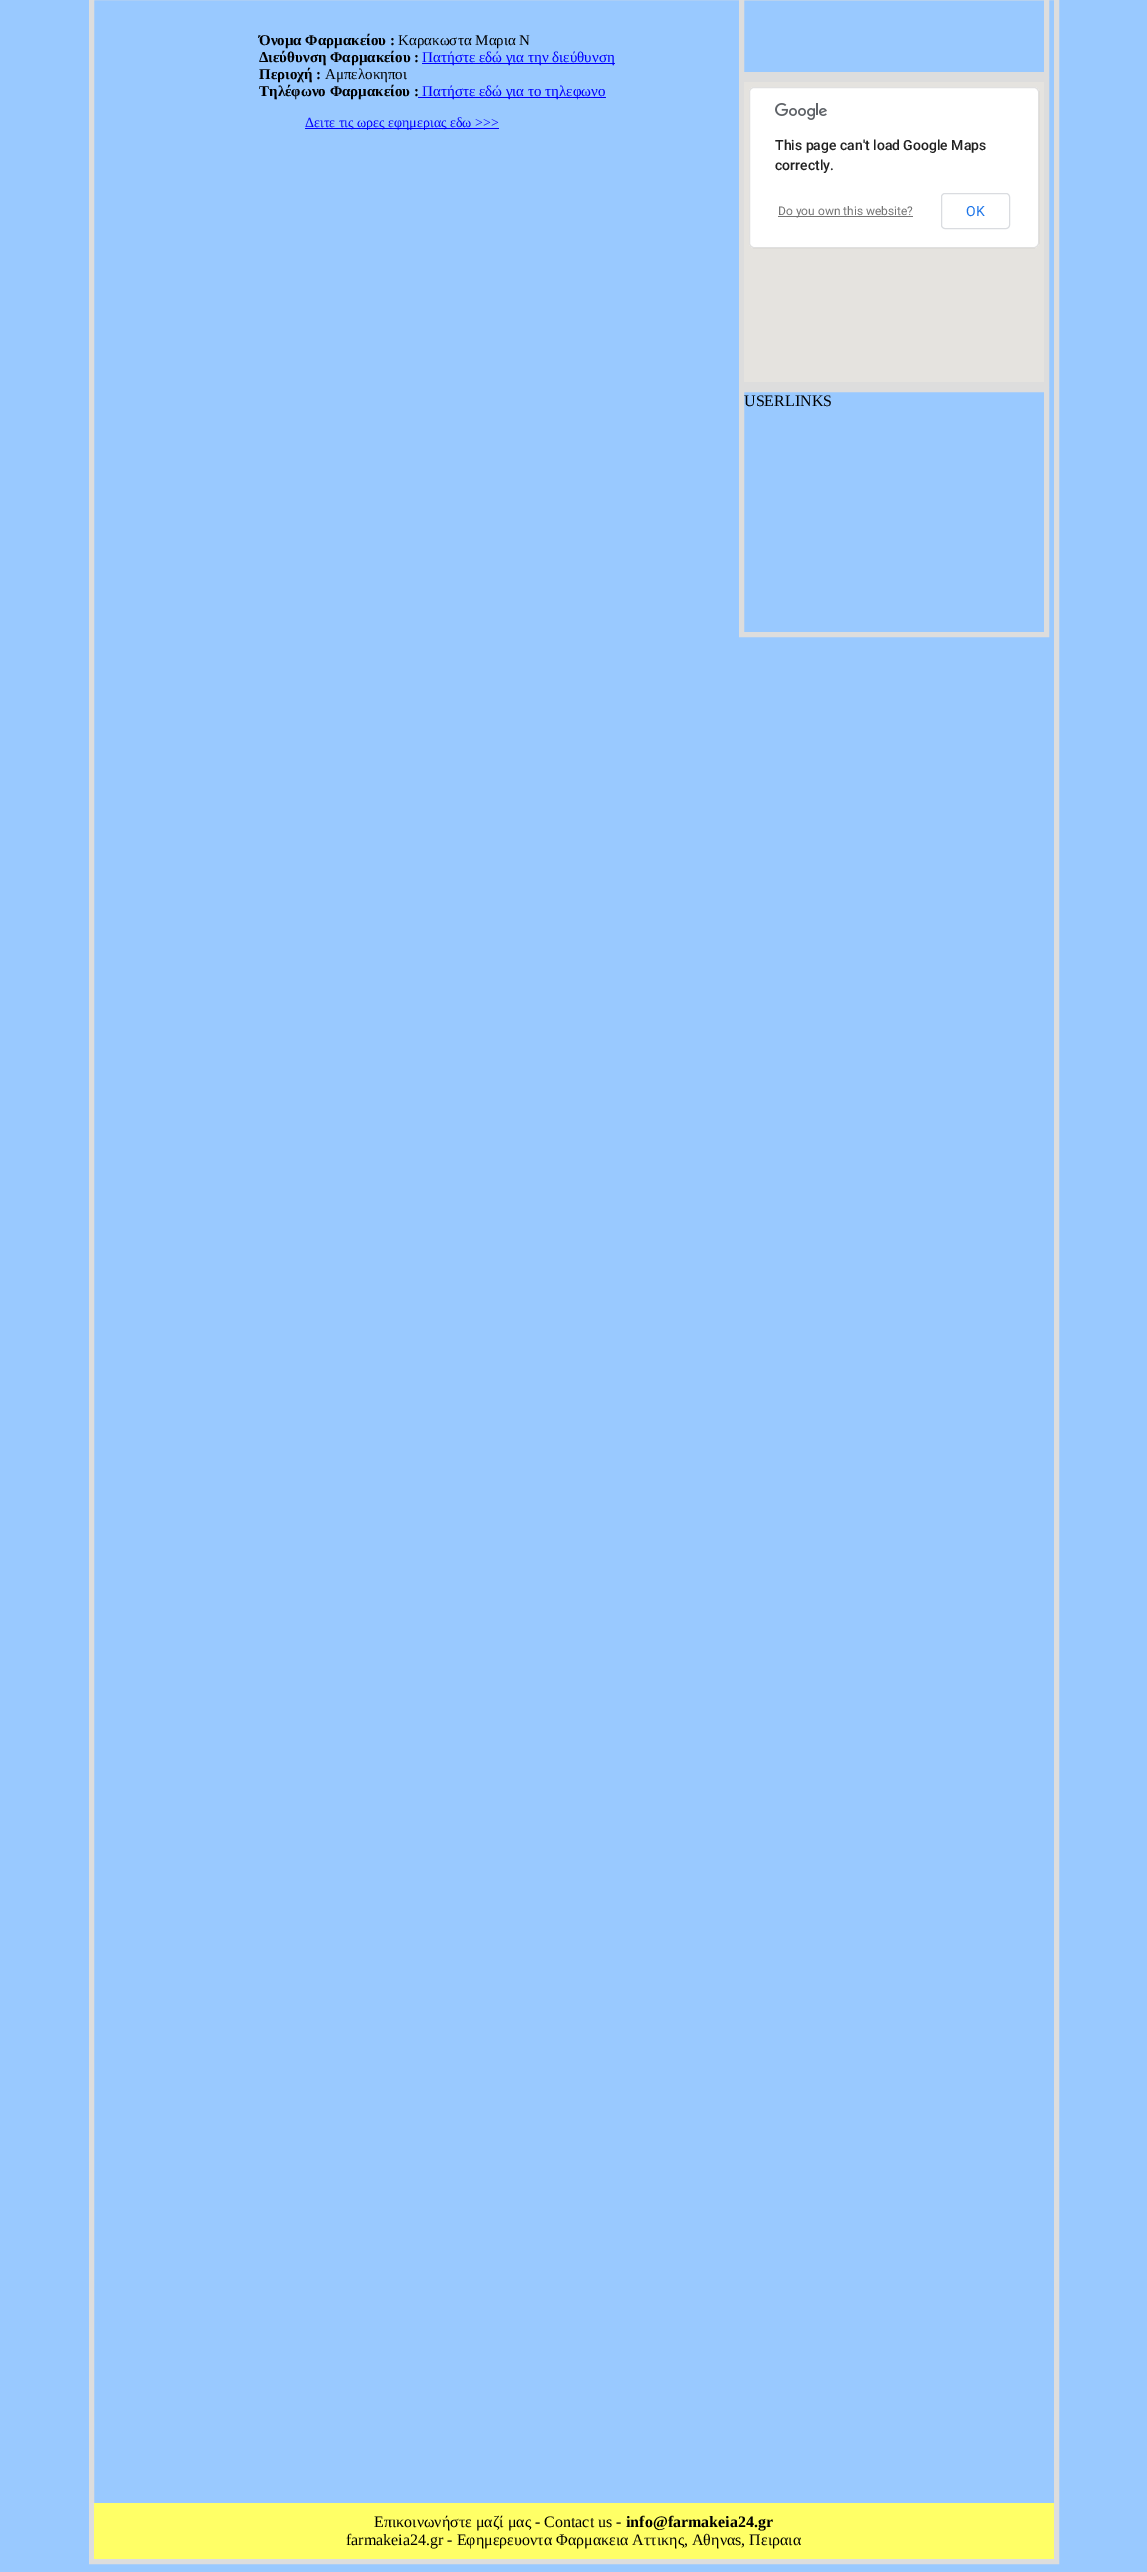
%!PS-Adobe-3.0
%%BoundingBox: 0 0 1147 2572
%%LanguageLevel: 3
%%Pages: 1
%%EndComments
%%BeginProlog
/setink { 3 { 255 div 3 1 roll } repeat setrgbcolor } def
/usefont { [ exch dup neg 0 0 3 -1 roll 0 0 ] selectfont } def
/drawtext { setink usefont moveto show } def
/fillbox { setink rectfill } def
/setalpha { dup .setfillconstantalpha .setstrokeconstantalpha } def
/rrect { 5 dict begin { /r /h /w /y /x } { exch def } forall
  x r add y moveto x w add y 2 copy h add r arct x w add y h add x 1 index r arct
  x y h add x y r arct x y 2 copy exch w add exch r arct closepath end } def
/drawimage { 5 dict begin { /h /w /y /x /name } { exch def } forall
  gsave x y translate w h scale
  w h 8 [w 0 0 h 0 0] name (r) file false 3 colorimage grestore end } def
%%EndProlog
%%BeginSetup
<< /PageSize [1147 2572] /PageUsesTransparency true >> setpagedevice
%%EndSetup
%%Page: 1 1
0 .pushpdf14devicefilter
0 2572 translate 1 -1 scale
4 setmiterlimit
0 0 1147 2572 153 201 255 fillbox
221 221 221 setink
5 setlinewidth
91.5 -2.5 965 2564 rectstroke
(Όνομα Φαρμακείου :) 259 45 /LiberationSerif-Bold 15 0 0 0 drawtext
(Καρακωστα Μαρια Ν) 398 45 /LiberationSerif-Regular 15 0 0 0 drawtext
(Διεύθυνση Φαρμακείου :) 259 62 /LiberationSerif-Bold 15 0 0 0 drawtext
422 63 193 1 0 0 255 fillbox
(Πατήστε εδώ για την διεύθυνση) 422 62 /LiberationSerif-Regular 15 0 0 255 drawtext
(Περιοχή :) 259 79 /LiberationSerif-Bold 15 0 0 0 drawtext
(Αμπελοκηποι) 325 79 /LiberationSerif-Regular 15 0 0 0 drawtext
(Τηλέφωνο Φαρμακείου :) 259 96 /LiberationSerif-Bold 15 0 0 0 drawtext
418 97 188 1 0 0 255 fillbox
(Πατήστε εδώ για το τηλεφωνο) 422 96 /LiberationSerif-Regular 15 0 0 255 drawtext
305 128 194 1 0 0 255 fillbox
(Δειτε τις ωρες εφημεριας εδω >>>) 305 127 /LiberationSerif-Regular 14 0 0 255 drawtext
221 221 221 setink
741.5 -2.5 305 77 rectstroke
741.5 79.5 305 305 rectstroke
744 82 300 300 229 227 223 fillbox
255 255 255 setink
749 87 290 161 5 rrect fill
0.12 setalpha
0 0 0 setink
1 setlinewidth
749.5 87.5 289 160 4.5 rrect stroke
1 setalpha
(assets/img1.rgb) 775 103 52 17 drawimage
(This page can't load Google Maps) 775 150 /Roboto-Medium 14 33 33 33 drawtext
(correctly.) 775 170 /Roboto-Medium 14 33 33 33 drawtext
778 216 135 1 117 117 117 fillbox
(Do you own this website?) 778 215 /Roboto-Regular 12 117 117 117 drawtext
218 220 224 setink
941.5 193.5 68 35 3.5 rrect stroke
(OK) 966 216 /Roboto-Regular 14 26 115 232 drawtext
221 221 221 setink
5 setlinewidth
741.5 389.5 305 245 rectstroke
(USERLINKS) 744 406 /LiberationSerif-Regular 16 0 0 0 drawtext
94 2503 960 56 255 255 102 fillbox
(Επικοινωνήστε μαζί μας - Contact us -) 374 2527 /LiberationSerif-Regular 16 0 0 0 drawtext
(info@farmakeia24.gr) 626 2527 /LiberationSerif-Bold 16 0 0 0 drawtext
(farmakeia24.gr - Εφημερευοντα Φαρμακεια Αττικης, Αθηναs, Πειραια) 346 2545 /LiberationSerif-Regular 16 0 0 0 drawtext
.poppdf14devicefilter showpage
%%EOF
